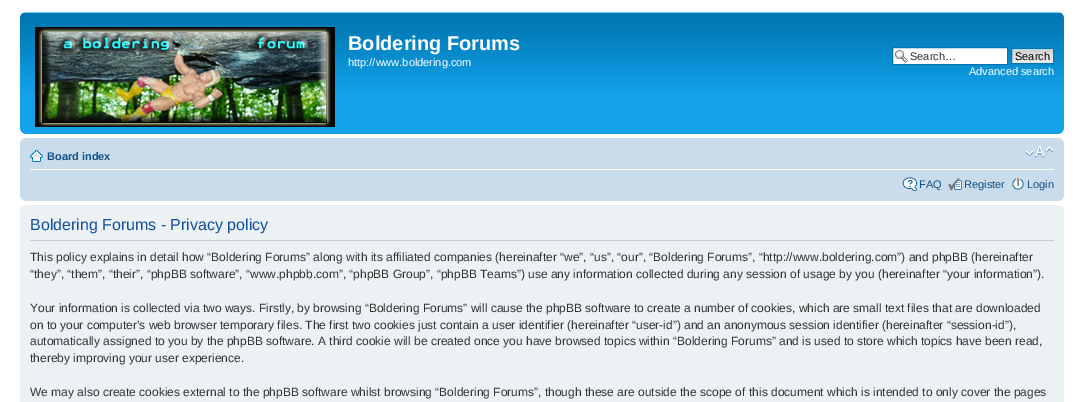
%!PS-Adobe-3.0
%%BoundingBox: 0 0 1084 402
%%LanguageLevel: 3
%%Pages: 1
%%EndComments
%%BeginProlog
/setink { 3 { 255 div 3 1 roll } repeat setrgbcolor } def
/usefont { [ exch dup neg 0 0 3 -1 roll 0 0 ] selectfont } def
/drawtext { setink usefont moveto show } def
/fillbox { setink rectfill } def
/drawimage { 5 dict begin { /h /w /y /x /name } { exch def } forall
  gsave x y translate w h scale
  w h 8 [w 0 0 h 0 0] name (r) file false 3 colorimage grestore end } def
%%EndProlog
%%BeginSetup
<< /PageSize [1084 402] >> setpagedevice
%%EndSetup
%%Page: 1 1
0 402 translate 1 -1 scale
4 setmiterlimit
0 0 1084 402 255 255 255 fillbox
20 94 1044 40 18 163 235 fillbox
(assets/img1.rgb) 20 12 1044 82 drawimage
(assets/img2.rgb) 20 12 5 5 drawimage
(assets/img3.rgb) 1059 12 5 5 drawimage
(assets/img4.rgb) 35 27 300 100 drawimage
(Boldering Forums) 348 50 /LiberationSans-Bold 20 255 255 255 drawtext
(http://www.boldering.com) 348 66 /LiberationSans-Regular 11 255 255 255 drawtext
893 48 114 16 255 255 255 fillbox
(assets/img5.rgb) 895 50 13 13 drawimage
0 117 176 setink
892.5 47.5 115 17 rectstroke
(Search…) 910 60 /LiberationSans-Regular 11 51 51 51 drawtext
(assets/img6.rgb) 1012 49 41 14 drawimage
0 117 176 setink
1011.5 48.5 42 15 rectstroke
(Search) 1015 60 /LiberationSans-Regular 11 0 0 0 drawtext
(Advanced search) 969 75 /LiberationSans-Regular 11 255 255 255 drawtext
(assets/img7.rgb) 20 129 5 5 drawimage
(assets/img8.rgb) 1059 129 5 5 drawimage
20 138 1044 63 202 220 235 fillbox
(assets/img9.rgb) 20 138 5 5 drawimage
(assets/img10.rgb) 1059 138 5 5 drawimage
30 169 1024 1 255 255 255 fillbox
(assets/img11.rgb) 30 150 13 12 drawimage
(Board index) 47 160 /LiberationSans-Bold 11 16 82 137 drawtext
(assets/img12.rgb) 1025 146 29 12 drawimage
(assets/img13.rgb) 902 177 16 14 drawimage
(FAQ) 919 188 /LiberationSans-Regular 11 16 82 137 drawtext
(assets/img14.rgb) 948 178 14 13 drawimage
(Register) 964 188 /LiberationSans-Regular 11 16 82 137 drawtext
(assets/img15.rgb) 1012 178 12 12 drawimage
(Login) 1027 188 /LiberationSans-Regular 11 16 82 137 drawtext
(assets/img16.rgb) 20 196 5 5 drawimage
(assets/img17.rgb) 1059 196 5 5 drawimage
20 205 1044 197 236 241 243 fillbox
(assets/img18.rgb) 20 205 5 5 drawimage
(assets/img19.rgb) 1059 205 5 5 drawimage
30 240 1024 1 204 204 204 fillbox
(Boldering Forums - Privacy policy) 30 230 /LiberationSans-Regular 16 17 80 152 drawtext
(This policy explains in detail how “Boldering Forums” along with its affiliated companies \(hereinafter “we”, “us”, “our”, “Boldering Forums”, “http://www.boldering.com”\) and phpBB \(hereinafter) 30 261 /LiberationSans-Regular 12 51 51 51 drawtext
(“they”, “them”, “their”, “phpBB software”, “www.phpbb.com”, “phpBB Group”, “phpBB Teams”\) use any information collected during any session of usage by you \(hereinafter “your information”\).) 30 278 /LiberationSans-Regular 12 51 51 51 drawtext
(Your information is collected via two ways. Firstly, by browsing “Boldering Forums” will cause the phpBB software to create a number of cookies, which are small text files that are downloaded) 30 312 /LiberationSans-Regular 12 51 51 51 drawtext
(on to your computer’s web browser temporary files. The first two cookies just contain a user identifier \(hereinafter “user-id”\) and an anonymous session identifier \(hereinafter “session-id”\),) 30 329 /LiberationSans-Regular 12 51 51 51 drawtext
(automatically assigned to you by the phpBB software. A third cookie will be created once you have browsed topics within “Boldering Forums” and is used to store which topics have been read,) 30 345 /LiberationSans-Regular 12 51 51 51 drawtext
(thereby improving your user experience.) 30 362 /LiberationSans-Regular 12 51 51 51 drawtext
(We may also create cookies external to the phpBB software whilst browsing “Boldering Forums”, though these are outside the scope of this document which is intended to only cover the pages) 30 396 /LiberationSans-Regular 12 51 51 51 drawtext
showpage
%%EOF
